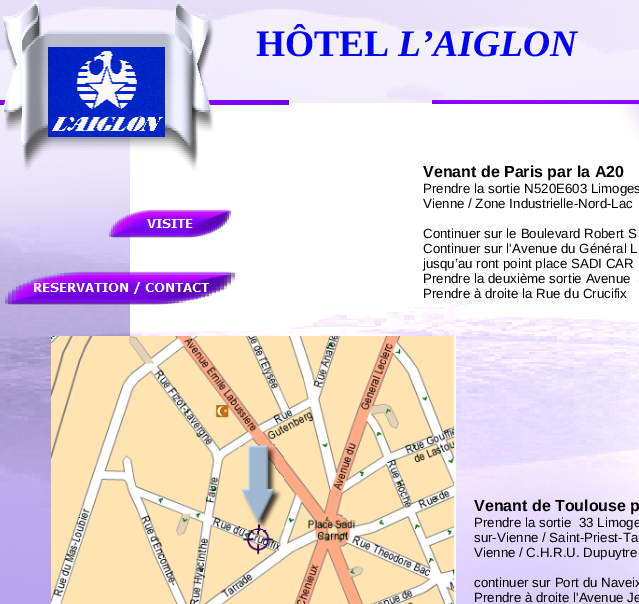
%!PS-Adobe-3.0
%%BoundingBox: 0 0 639 604
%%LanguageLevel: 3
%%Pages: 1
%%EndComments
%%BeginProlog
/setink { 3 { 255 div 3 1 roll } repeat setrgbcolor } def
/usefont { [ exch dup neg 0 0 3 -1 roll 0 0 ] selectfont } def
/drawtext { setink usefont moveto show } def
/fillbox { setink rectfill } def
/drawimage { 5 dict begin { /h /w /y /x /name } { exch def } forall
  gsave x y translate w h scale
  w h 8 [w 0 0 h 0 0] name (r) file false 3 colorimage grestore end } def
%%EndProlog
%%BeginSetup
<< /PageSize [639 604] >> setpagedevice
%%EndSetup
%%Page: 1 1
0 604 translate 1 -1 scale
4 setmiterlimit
0 0 639 604 255 255 255 fillbox
(assets/img1.rgb) 0 0 639 604 drawimage
(assets/img6.rgb) 130 103 509 501 drawimage
(assets/img2.rgb) 0 0 214 171 drawimage
gsave
256 24 379 46 rectclip
(HÔTEL) 256 56 /LiberationSerif-Bold 37.5 0 0 255 drawtext
grestore
(L’AIGLON) 398 56 /LiberationSerif-BoldItalic 37.5 0 0 255 drawtext
(assets/img3.rgb) 48 47 117 90 drawimage
(assets/img4.rgb) 214 100 75 5 drawimage
(assets/img5.rgb) 432 100 207 4 drawimage
(assets/img7.rgb) 103 206 130 32 drawimage
(Venant de Paris par la A20) 423 177 /LiberationSans-Bold 16 0 0 0 drawtext
(Prendre la sortie N520E603 Limoges) 423 193 /LiberationSans-Regular 13.3 0 0 0 drawtext
(Vienne / Zone Industrielle-Nord-Lac) 423 208 /LiberationSans-Regular 13.3 0 0 0 drawtext
(Continuer sur le Boulevard Robert S) 423 238 /LiberationSans-Regular 13.3 0 0 0 drawtext
(Continuer sur l'Avenue du Général L) 423 253 /LiberationSans-Regular 13.3 0 0 0 drawtext
(jusqu’au ront point place SADI CAR) 423 268 /LiberationSans-Regular 13.3 0 0 0 drawtext
(Prendre la deuxième sortie Avenue) 423 283 /LiberationSans-Regular 13.3 0 0 0 drawtext
(Prendre à droite la Rue du Crucifix) 423 298 /LiberationSans-Regular 13.3 0 0 0 drawtext
(assets/img8.rgb) 1 267 237 41 drawimage
(assets/img9.rgb) 51 336 405 268 drawimage
(assets/img10.rgb) 239 444 45 87 drawimage
(Venant de Toulouse p) 474 511 /LiberationSans-Bold 16 0 0 0 drawtext
(Prendre la sortie  33 Limoge) 474 527 /LiberationSans-Regular 13.3 0 0 0 drawtext
(sur-Vienne / Saint-Priest-Ta) 474 542 /LiberationSans-Regular 13.3 0 0 0 drawtext
(Vienne / C.H.R.U. Dupuytre) 474 557 /LiberationSans-Regular 13.3 0 0 0 drawtext
(continuer sur Port du Naveix) 474 587 /LiberationSans-Regular 13.3 0 0 0 drawtext
(Prendre à droite l'Avenue Je) 474 602 /LiberationSans-Regular 13.3 0 0 0 drawtext
showpage
%%EOF
